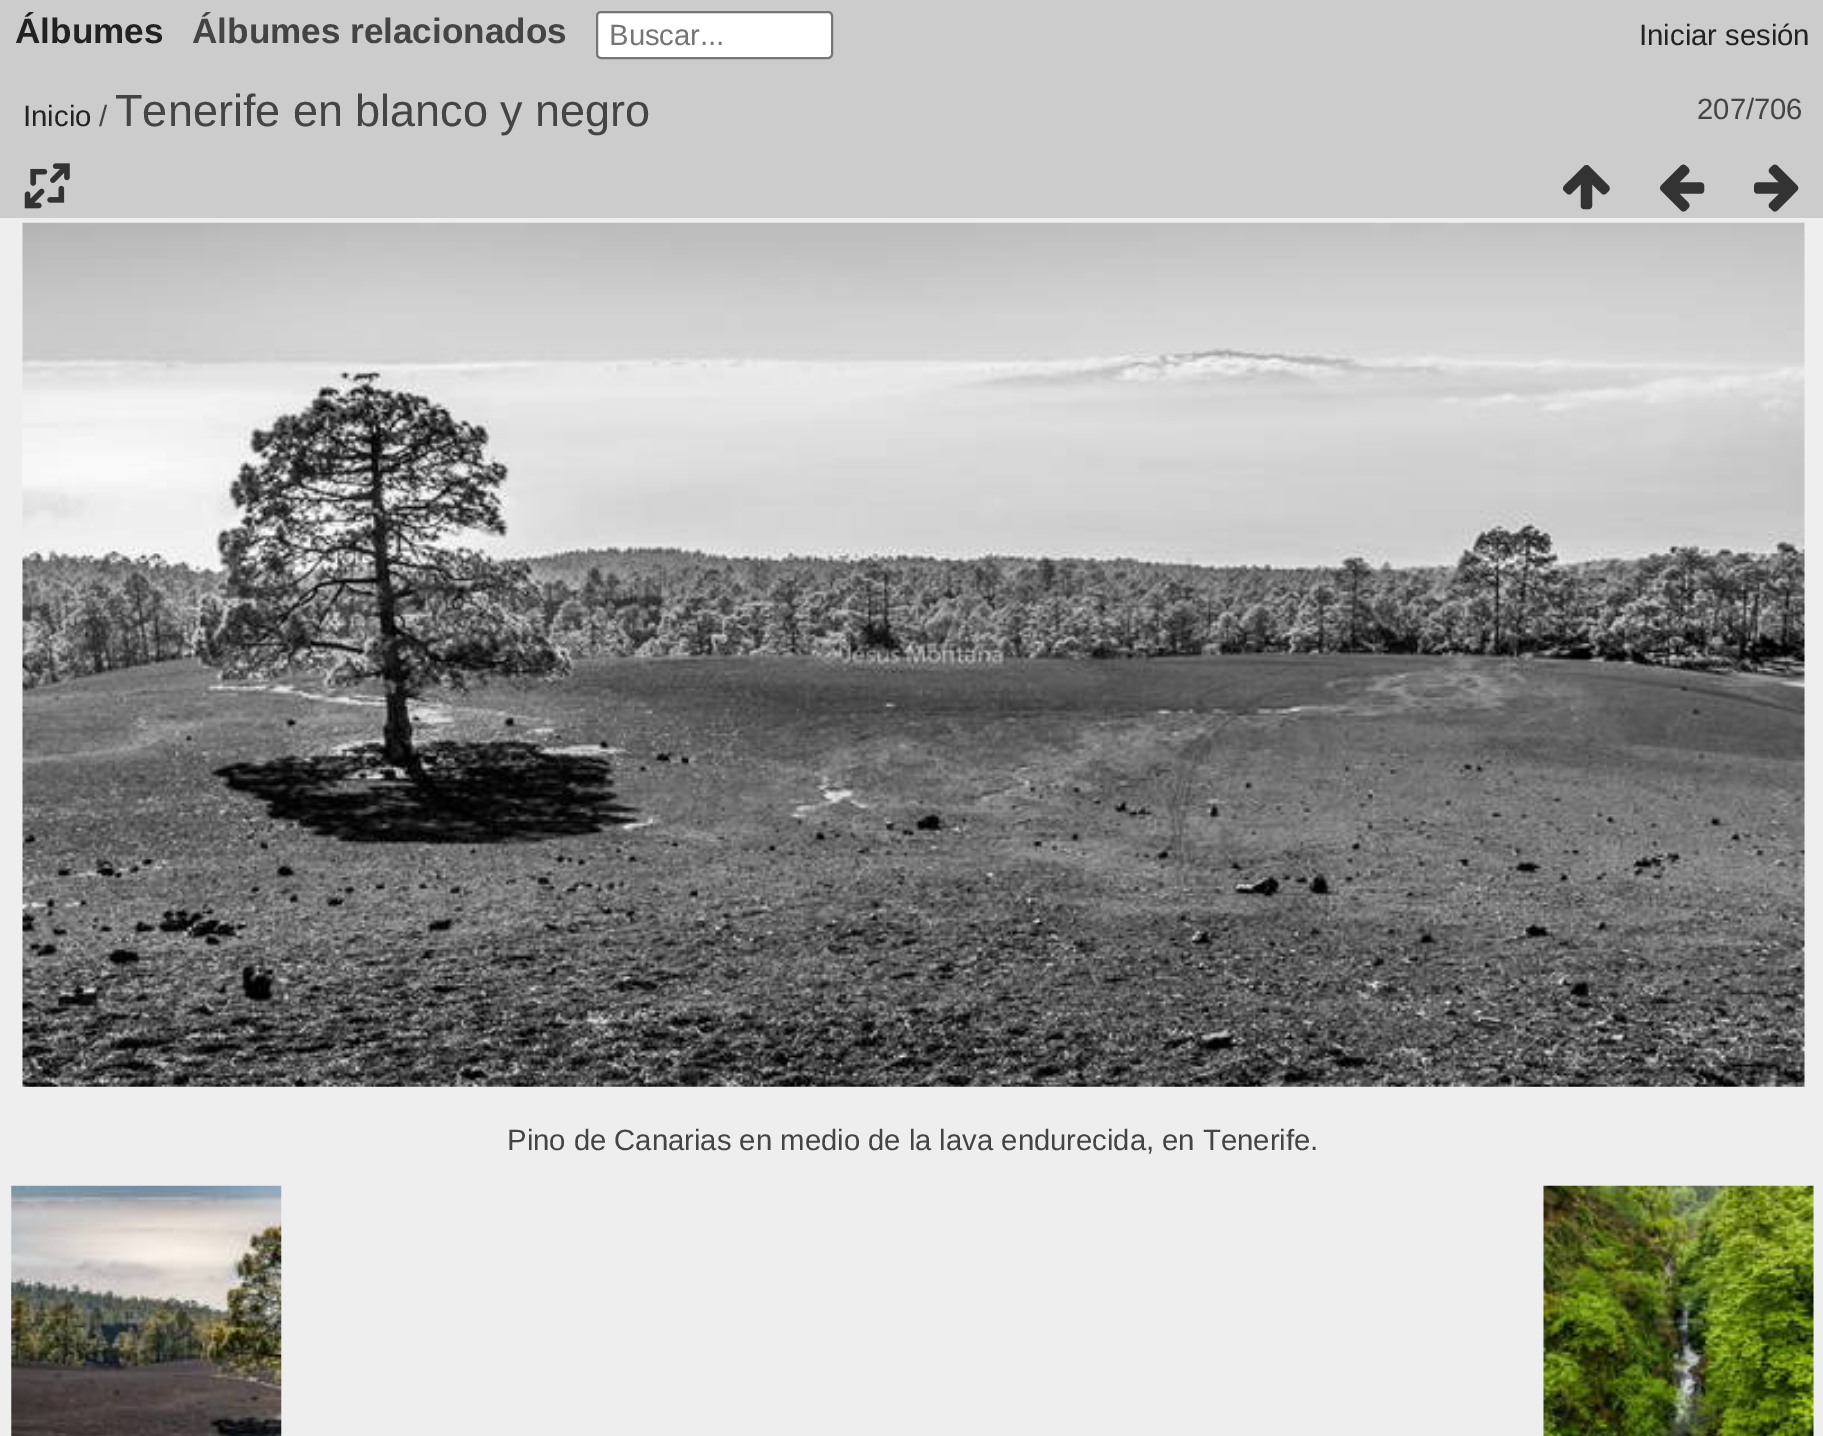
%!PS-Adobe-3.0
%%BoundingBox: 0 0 1823 1436
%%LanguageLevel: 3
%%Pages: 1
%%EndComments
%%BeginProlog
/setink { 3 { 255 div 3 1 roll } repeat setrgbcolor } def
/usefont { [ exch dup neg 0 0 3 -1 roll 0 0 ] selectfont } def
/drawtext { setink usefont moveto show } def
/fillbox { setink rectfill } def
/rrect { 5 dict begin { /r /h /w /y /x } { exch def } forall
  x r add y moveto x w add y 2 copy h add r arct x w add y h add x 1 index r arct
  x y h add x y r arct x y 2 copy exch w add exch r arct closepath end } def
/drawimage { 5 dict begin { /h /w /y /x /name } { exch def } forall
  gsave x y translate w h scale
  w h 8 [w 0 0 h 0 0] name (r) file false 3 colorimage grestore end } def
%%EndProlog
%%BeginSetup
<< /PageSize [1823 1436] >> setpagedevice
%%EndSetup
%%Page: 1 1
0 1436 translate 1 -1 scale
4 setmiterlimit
0 0 1823 1436 238 238 238 fillbox
0 0 1823 218 204 204 204 fillbox
(Álbumes) 15 43 /LiberationSans-Bold 35.1 34 34 34 drawtext
(Álbumes relacionados) 192 43 /LiberationSans-Bold 35.1 68 68 68 drawtext
255 255 255 setink
597 12 235 46 4 rrect gsave fill grestore
118 118 118 setink
2 setlinewidth
stroke
(Buscar...) 609 45 /LiberationSans-Regular 29.25 117 117 117 drawtext
(Iniciar sesión) 1639 45 /LiberationSans-Regular 29.25 34 34 34 drawtext
(Inicio) 23 126 /LiberationSans-Regular 29.25 34 34 34 drawtext
(/) 99 126 /LiberationSans-Regular 29.25 68 68 68 drawtext
(Tenerife en blanco y negro) 115 126 /LiberationSans-Regular 45 68 68 68 drawtext
(207/706) 1697 119 /LiberationSans-Regular 29.25 68 68 68 drawtext
(assets/img1.rgb) 24 163 46 46 drawimage
(↑) 1563 205 /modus-Regular 54 51 51 51 drawtext
(←) 1660 205 /modus-Regular 54 51 51 51 drawtext
(→) 1754 205 /modus-Regular 54 51 51 51 drawtext
(assets/img2.rgb) 22 222 1783 865 drawimage
(Pino de Canarias en medio de la lava endurecida, en Tenerife.) 507 1150 /LiberationSans-Regular 29.25 68 68 68 drawtext
(assets/img3.rgb) 11 1185 271 251 drawimage
(assets/img4.rgb) 1543 1185 271 251 drawimage
showpage
%%EOF
